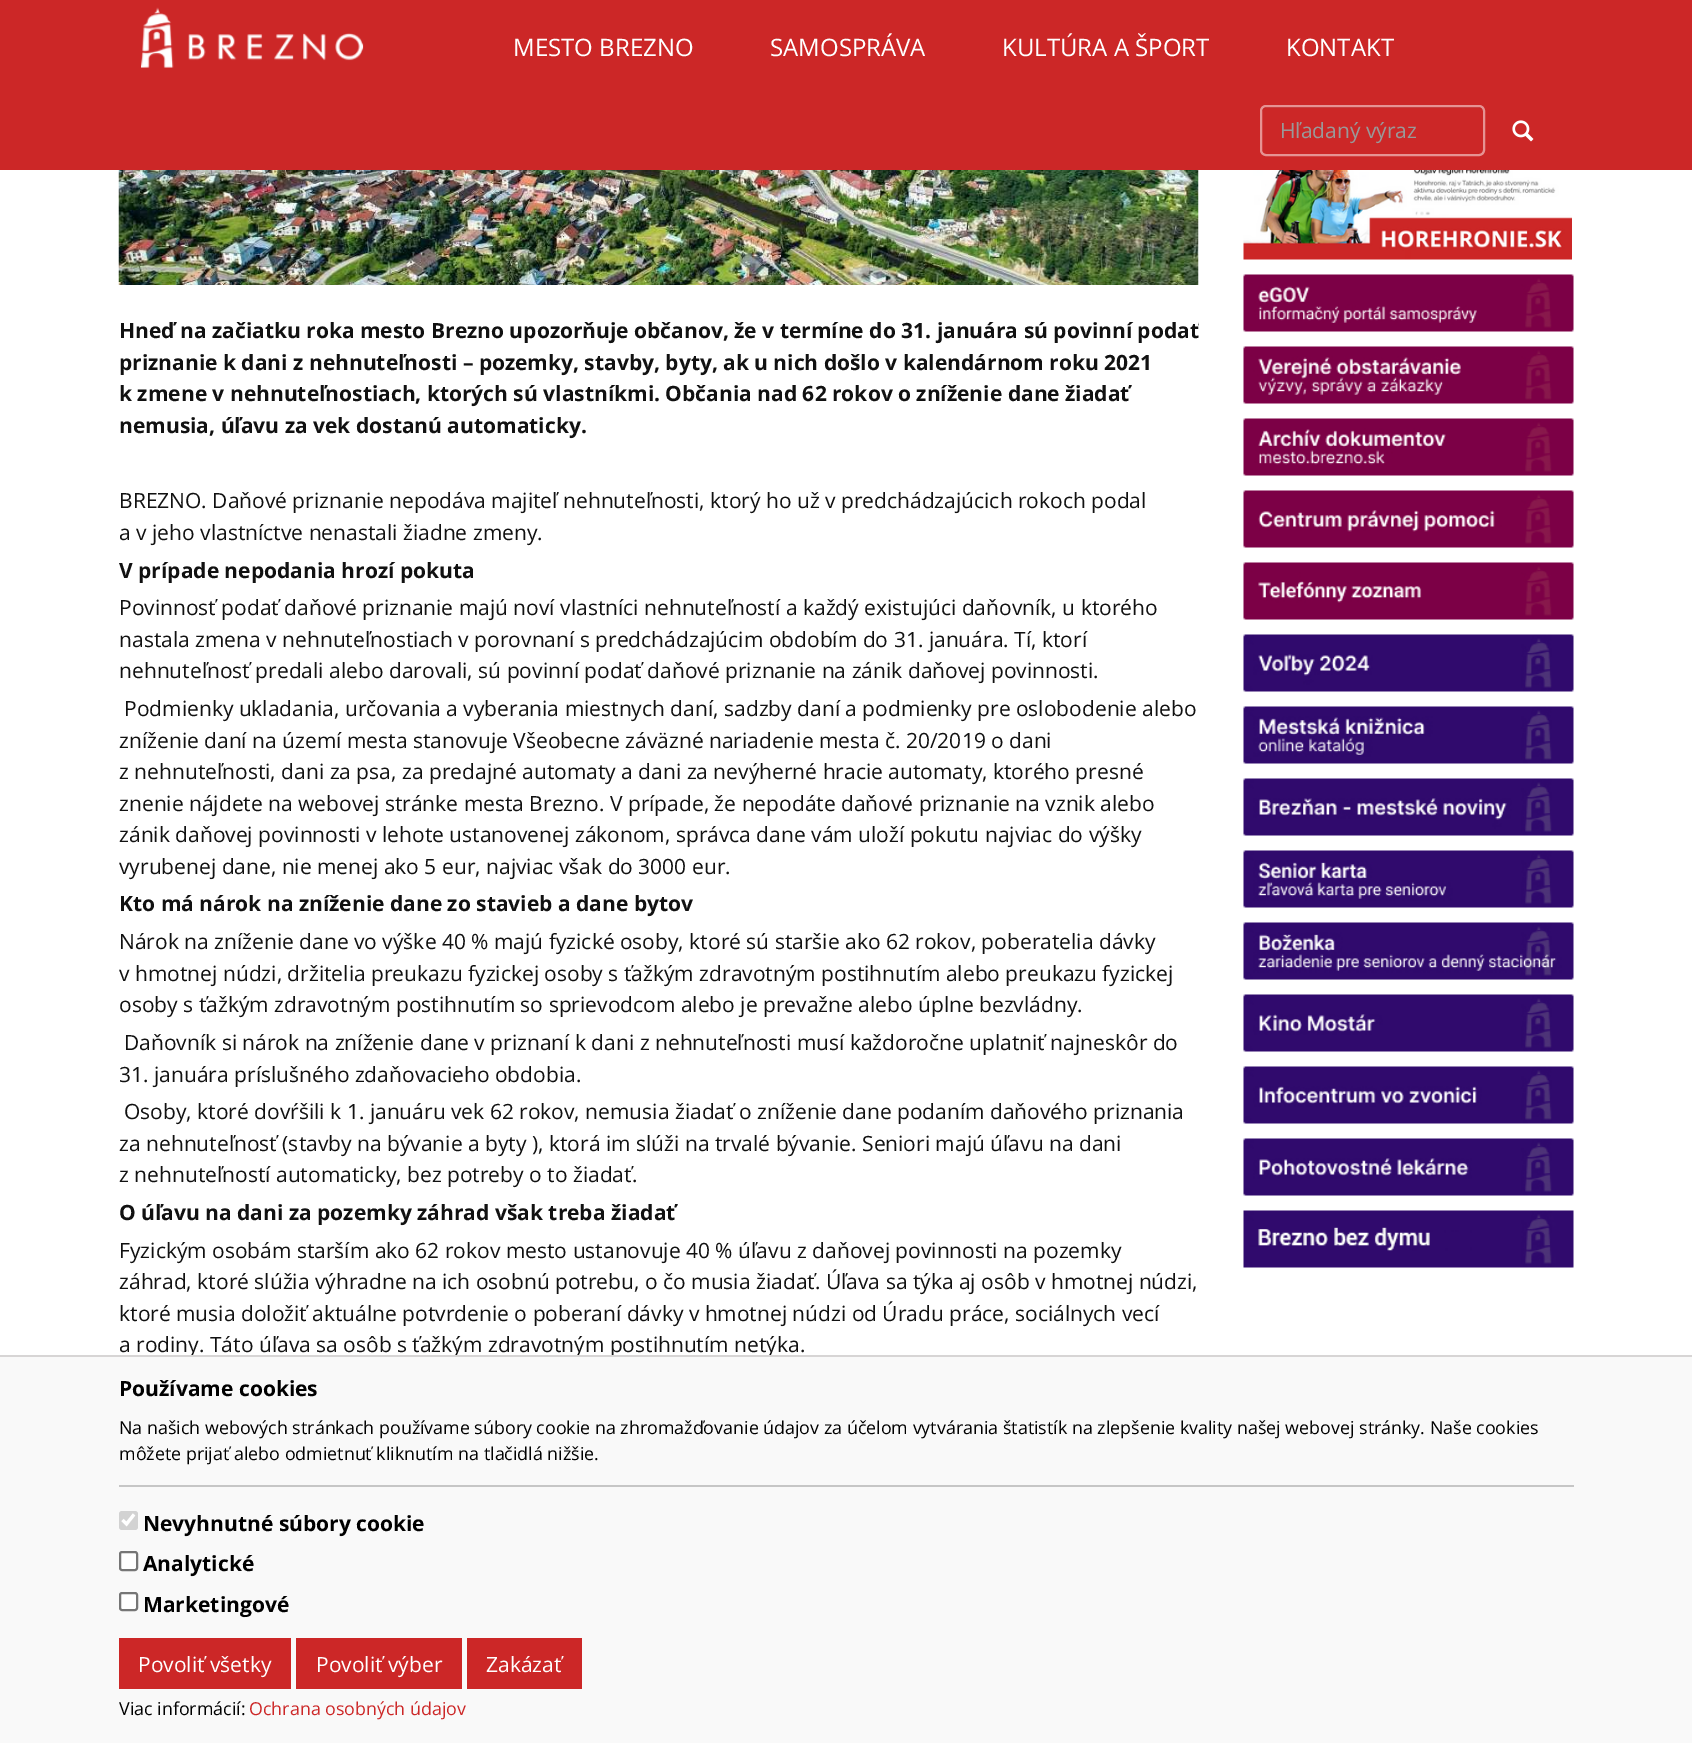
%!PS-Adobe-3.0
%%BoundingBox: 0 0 1692 1743
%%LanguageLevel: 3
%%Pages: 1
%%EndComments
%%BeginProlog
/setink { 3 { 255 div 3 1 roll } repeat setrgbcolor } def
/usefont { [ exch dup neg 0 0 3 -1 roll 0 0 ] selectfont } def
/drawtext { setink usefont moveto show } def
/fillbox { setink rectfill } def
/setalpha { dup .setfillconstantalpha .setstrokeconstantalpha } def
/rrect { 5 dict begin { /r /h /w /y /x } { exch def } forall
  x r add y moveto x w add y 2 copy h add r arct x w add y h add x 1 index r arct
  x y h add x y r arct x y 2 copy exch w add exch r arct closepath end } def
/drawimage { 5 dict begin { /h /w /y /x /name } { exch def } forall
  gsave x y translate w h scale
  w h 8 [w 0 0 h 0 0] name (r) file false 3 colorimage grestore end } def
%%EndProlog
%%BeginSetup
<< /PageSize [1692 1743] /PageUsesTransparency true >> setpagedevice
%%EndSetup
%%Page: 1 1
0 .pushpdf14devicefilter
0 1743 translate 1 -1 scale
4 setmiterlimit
0 0 1692 1743 255 255 255 fillbox
0 0 1692 170 204 39 39 fillbox
(assets/img1.rgb) 141 7 223 61 drawimage
(MESTO BREZNO) 513 56 /OpenSans-Regular 24 255 255 255 drawtext
(SAMOSPRÁVA) 770 56 /OpenSans-Regular 24 255 255 255 drawtext
(KULTÚRA A ŠPORT) 1002 56 /OpenSans-Regular 24 255 255 255 drawtext
(KONTAKT) 1286 56 /OpenSans-Regular 24 255 255 255 drawtext
189 36 36 setink
1266 108 moveto 1479 108 lineto 1481 108 1484 110 1484 112 curveto 1484 109 1482 107 1479 107 curveto 1267 107 lineto 1264 107 1262 109 1262 112 curveto 1262 110 1264 108 1266 108 curveto closepath fill
0.5 setalpha
255 255 255 setink
2 setlinewidth
1261 106 223 49 5 rrect stroke
1 setalpha
(Hľadaný výraz) 1280 138 /OpenSans-Regular 21 153 153 153 drawtext
(assets/img2.rgb) 1512 120 22 22 drawimage
(assets/img3.rgb) 118 170 1081 115 drawimage
gsave
119 315 1080 1329 rectclip
(Hneď na začiatku roka mesto Brezno upozorňuje občanov, že v termíne do 31. januára sú povinní podať) 119 338 /OpenSans-Bold 21 17 17 17 drawtext
grestore
(priznanie k dani z nehnuteľnosti – pozemky, stavby, byty, ak u nich došlo v kalendárnom roku 2021) 119 370 /OpenSans-Bold 21 17 17 17 drawtext
(k zmene v nehnuteľnostiach, ktorých sú vlastníkmi. Občania nad 62 rokov o zníženie dane žiadať) 119 401 /OpenSans-Bold 21 17 17 17 drawtext
(nemusia, úľavu za vek dostanú automaticky.) 119 433 /OpenSans-Bold 21 17 17 17 drawtext
(BREZNO. Daňové priznanie nepodáva majiteľ nehnuteľnosti, ktorý ho už v predchádzajúcich rokoch podal) 119 508 /OpenSans-Regular 21 17 17 17 drawtext
(a v jeho vlastníctve nenastali žiadne zmeny.) 119 540 /OpenSans-Regular 21 17 17 17 drawtext
(V prípade nepodania hrozí pokuta) 119 578 /OpenSans-Bold 21 17 17 17 drawtext
(Povinnosť podať daňové priznanie majú noví vlastníci nehnuteľností a každý existujúci daňovník, u ktorého) 119 615 /OpenSans-Regular 21 17 17 17 drawtext
(nastala zmena v nehnuteľnostiach v porovnaní s predchádzajúcim obdobím do 31. januára. Tí, ktorí) 119 647 /OpenSans-Regular 21 17 17 17 drawtext
(nehnuteľnosť predali alebo darovali, sú povinní podať daňové priznanie na zánik daňovej povinnosti.) 119 678 /OpenSans-Regular 21 17 17 17 drawtext
(Podmienky ukladania, určovania a vyberania miestnych daní, sadzby daní a podmienky pre oslobodenie alebo) 124 716 /OpenSans-Regular 21 17 17 17 drawtext
(zníženie daní na území mesta stanovuje Všeobecne záväzné nariadenie mesta č. 20/2019 o dani) 119 748 /OpenSans-Regular 21 17 17 17 drawtext
(z nehnuteľnosti, dani za psa, za predajné automaty a dani za nevýherné hracie automaty, ktorého presné) 119 779 /OpenSans-Regular 21 17 17 17 drawtext
(znenie nájdete na webovej stránke mesta Brezno. V prípade, že nepodáte daňové priznanie na vznik alebo) 119 811 /OpenSans-Regular 21 17 17 17 drawtext
(zánik daňovej povinnosti v lehote ustanovenej zákonom, správca dane vám uloží pokutu najviac do výšky) 119 842 /OpenSans-Regular 21 17 17 17 drawtext
(vyrubenej dane, nie menej ako 5 eur, najviac však do 3000 eur.) 119 874 /OpenSans-Regular 21 17 17 17 drawtext
(Kto má nárok na zníženie dane zo stavieb a dane bytov) 119 911 /OpenSans-Bold 21 17 17 17 drawtext
(Nárok na zníženie dane vo výške 40 % majú fyzické osoby, ktoré sú staršie ako 62 rokov, poberatelia dávky) 119 949 /OpenSans-Regular 21 17 17 17 drawtext
(v hmotnej núdzi, držitelia preukazu fyzickej osoby s ťažkým zdravotným postihnutím alebo preukazu fyzickej) 119 981 /OpenSans-Regular 21 17 17 17 drawtext
(osoby s ťažkým zdravotným postihnutím so sprievodcom alebo je prevažne alebo úplne bezvládny.) 119 1012 /OpenSans-Regular 21 17 17 17 drawtext
(Daňovník si nárok na zníženie dane v priznaní k dani z nehnuteľnosti musí každoročne uplatniť najneskôr do) 124 1050 /OpenSans-Regular 21 17 17 17 drawtext
(31. januára príslušného zdaňovacieho obdobia.) 119 1082 /OpenSans-Regular 21 17 17 17 drawtext
(Osoby, ktoré dovŕšili k 1. januáru vek 62 rokov, nemusia žiadať o zníženie dane podaním daňového priznania) 124 1119 /OpenSans-Regular 21 17 17 17 drawtext
(za nehnuteľnosť \(stavby na bývanie a byty \), ktorá im slúži na trvalé bývanie. Seniori majú úľavu na dani) 119 1151 /OpenSans-Regular 21 17 17 17 drawtext
(z nehnuteľností automaticky, bez potreby o to žiadať.) 119 1182 /OpenSans-Regular 21 17 17 17 drawtext
(O úľavu na dani za pozemky záhrad však treba žiadať) 119 1220 /OpenSans-Bold 21 17 17 17 drawtext
(Fyzickým osobám starším ako 62 rokov mesto ustanovuje 40 % úľavu z daňovej povinnosti na pozemky) 119 1258 /OpenSans-Regular 21 17 17 17 drawtext
(záhrad, ktoré slúžia výhradne na ich osobnú potrebu, o čo musia žiadať. Úľava sa týka aj osôb v hmotnej núdzi,) 119 1289 /OpenSans-Regular 21 17 17 17 drawtext
(ktoré musia doložiť aktuálne potvrdenie o poberaní dávky v hmotnej núdzi od Úradu práce, sociálnych vecí) 119 1321 /OpenSans-Regular 21 17 17 17 drawtext
(a rodiny. Táto úľava sa osôb s ťažkým zdravotným postihnutím netýka.) 119 1352 /OpenSans-Regular 21 17 17 17 drawtext
(assets/img4.rgb) 1243 170 329 90 drawimage
(assets/img5.rgb) 1243 274 331 58 drawimage
(assets/img6.rgb) 1243 346 331 58 drawimage
(assets/img7.rgb) 1243 418 331 58 drawimage
(assets/img8.rgb) 1243 490 331 58 drawimage
(assets/img9.rgb) 1243 562 331 58 drawimage
(assets/img10.rgb) 1243 634 331 58 drawimage
(assets/img11.rgb) 1243 706 331 58 drawimage
(assets/img12.rgb) 1243 778 331 58 drawimage
(assets/img13.rgb) 1243 850 331 58 drawimage
(assets/img14.rgb) 1243 922 331 58 drawimage
(assets/img15.rgb) 1243 994 331 58 drawimage
(assets/img16.rgb) 1243 1066 331 58 drawimage
(assets/img17.rgb) 1243 1138 331 58 drawimage
(assets/img18.rgb) 1243 1210 331 58 drawimage
0 1357 1692 386 249 249 249 fillbox
0 1355 1692 2 215 213 213 fillbox
(Používame cookies) 119 1396 /OpenSans-Bold 21 0 0 0 drawtext
(Na našich webových stránkach používame súbory cookie na zhromažďovanie údajov za účelom vytvárania štatistík na zlepšenie kvality našej webovej stránky. Naše cookies) 119 1434 /OpenSans-Regular 17.85 0 0 0 drawtext
(môžete prijať alebo odmietnuť kliknutím na tlačidlá nižšie.) 119 1460 /OpenSans-Regular 17.85 0 0 0 drawtext
119 1485 1455 2 198 198 198 fillbox
210 210 210 setink
119 1511 19 19 3 rrect fill
255 255 255 setink
3.1 setlinewidth
122.5 1520 moveto 126.5 1524 lineto 134 1514.5 lineto stroke
(Nevyhnutné súbory cookie) 143 1531 /OpenSans-Bold 21 0 0 0 drawtext
255 255 255 setink
120 1552 17 18 2 rrect gsave fill grestore
118 118 118 setink
2 setlinewidth
stroke
(Analytické) 143 1571 /OpenSans-Bold 21 0 0 0 drawtext
255 255 255 setink
120 1593 17 17 2 rrect gsave fill grestore
118 118 118 setink
stroke
(Marketingové) 143 1612 /OpenSans-Bold 21 0 0 0 drawtext
119 1638 172 51 204 39 39 fillbox
(Povoliť všetky) 138 1672 /OpenSans-Regular 21 255 255 255 drawtext
296 1638 166 51 204 39 39 fillbox
(Povoliť výber) 316 1672 /OpenSans-Regular 21 255 255 255 drawtext
467 1638 115 51 204 39 39 fillbox
(Zakázať) 486 1672 /OpenSans-Regular 21 255 255 255 drawtext
(Viac informácií:) 119 1715 /OpenSans-Regular 17.85 0 0 0 drawtext
(Ochrana osobných údajov) 249 1715 /OpenSans-Regular 17.85 204 39 39 drawtext
.poppdf14devicefilter showpage
%%EOF
